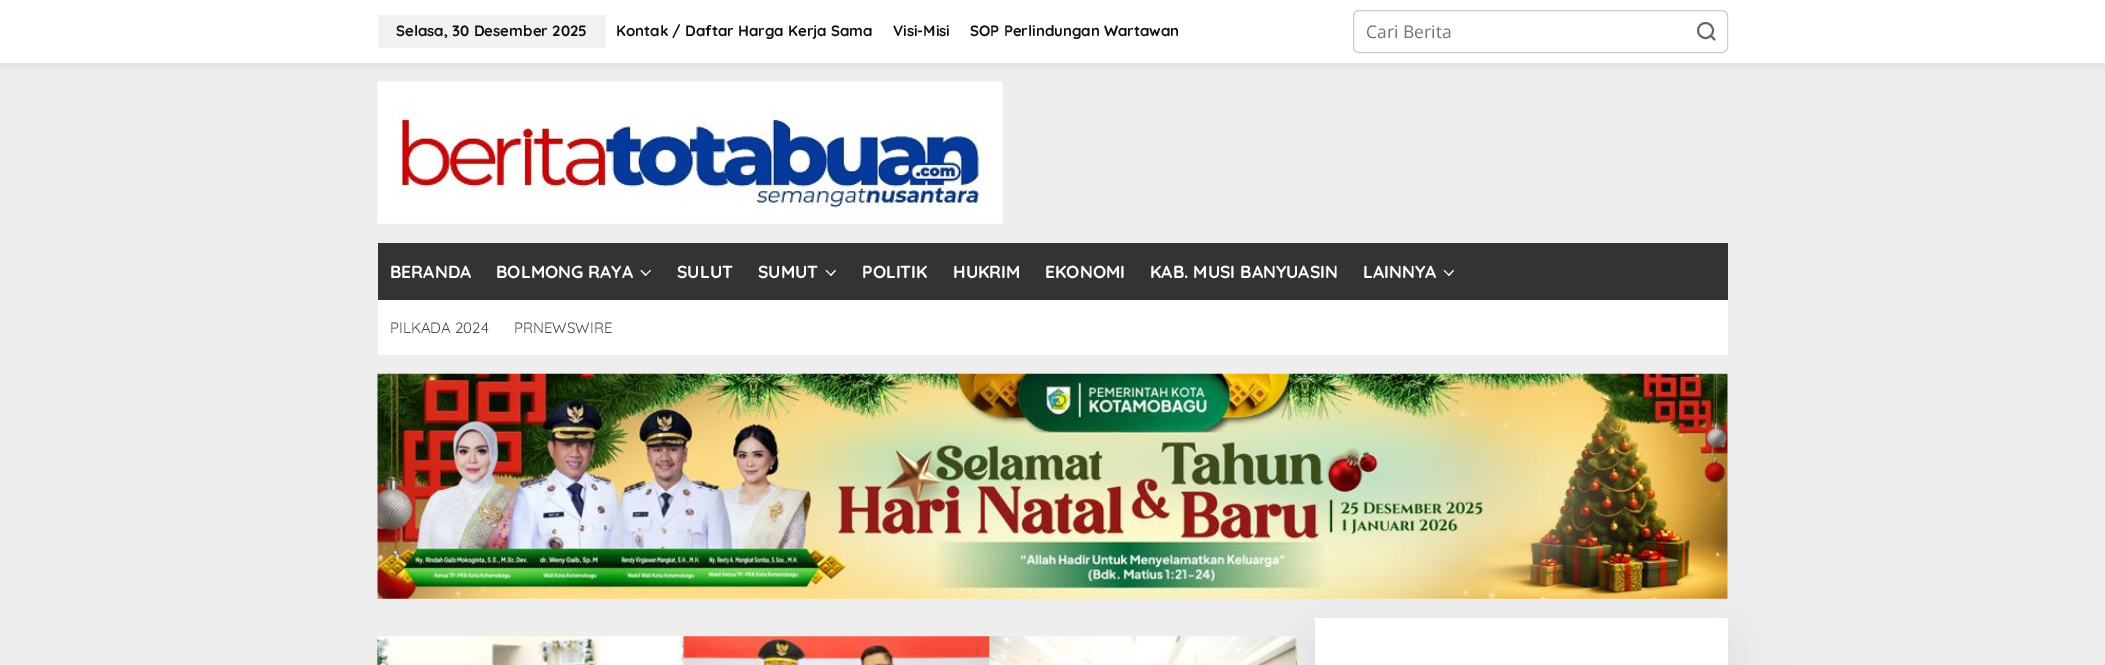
%!PS-Adobe-3.0
%%BoundingBox: 0 0 2105 665
%%LanguageLevel: 3
%%Pages: 1
%%EndComments
%%BeginProlog
/setink { 3 { 255 div 3 1 roll } repeat setrgbcolor } def
/usefont { [ exch dup neg 0 0 3 -1 roll 0 0 ] selectfont } def
/drawtext { setink usefont moveto show } def
/fillbox { setink rectfill } def
/setalpha { dup .setfillconstantalpha .setstrokeconstantalpha } def
/disc { newpath 0 360 arc closepath } def
/rrect { 5 dict begin { /r /h /w /y /x } { exch def } forall
  x r add y moveto x w add y 2 copy h add r arct x w add y h add x 1 index r arct
  x y h add x y r arct x y 2 copy exch w add exch r arct closepath end } def
/softshadow { 12 dict begin { /a /b /q /h /w /y /x } { exch def } forall gsave /was 0 def
  9 -2 -9 { dup b mul 4 div /e exch def 1 sub .425 mul 2.718 exch exp 1 add a .99 .min exch div /now exch def
    1 1 now sub 1 was sub div sub setalpha /was now def
    w h .min e 2 mul add 0 gt { x e sub y e sub w e 2 mul add h e 2 mul add
      q e add b .6 mul add w h .min 2 div e add .min 0 .max rrect fill } if } for grestore end } def
/drawimage { 5 dict begin { /h /w /y /x /name } { exch def } forall
  gsave x y translate w h scale
  w h 8 [w 0 0 h 0 0] name (r) file false 3 colorimage grestore end } def
%%EndProlog
%%BeginSetup
<< /PageSize [2105 665] /PageUsesTransparency true >> setpagedevice
%%EndSetup
%%Page: 1 1
0 .pushpdf14devicefilter
0 665 translate 1 -1 scale
4 setmiterlimit
0 0 2105 665 238 238 238 fillbox
(assets/img1.rgb) 377 81 626 143 drawimage
0 0 0 setink
0 0 2105 63 0 6 0.1 softshadow
0 0 2105 63 255 255 255 fillbox
378 15 228 33 242 242 242 fillbox
(Selasa, 30 Desember 2025) 396 36 /Quicksand-Bold 15 17 17 17 drawtext
(Kontak / Daftar Harga Kerja Sama) 616 36 /Quicksand-Bold 15 17 17 17 drawtext
(Visi-Misi) 893 36 /Quicksand-Bold 15 17 17 17 drawtext
(SOP Perlindungan Wartawan) 970 36 /Quicksand-Bold 15 17 17 17 drawtext
204 204 204 setink
1353.5 10.5 374 42 5.5 rrect stroke
(Cari Berita) 1366 38 /OpenSans-Regular 17.5 117 117 117 drawtext
102 102 102 setink
1.9 setlinewidth
1705.5 30.5 7.5 disc stroke
1 setlinecap
1 setlinejoin
1714.5 39.5 moveto 1710.5 35.5 lineto stroke
378 243 1350 57 51 51 51 fillbox
(BERANDA) 390 278 /Quicksand-Bold 17.5 255 255 255 drawtext
(BOLMONG RAYA) 496 278 /Quicksand-Bold 17.5 255 255 255 drawtext
650 270 moveto 651 270.5 lineto 645.5 276 lineto 645 275 lineto closepath fill
641.5 270 moveto 646.5 275 lineto 645.5 276 lineto 640.5 270.5 lineto closepath fill
(SULUT) 677 278 /Quicksand-Bold 17.5 255 255 255 drawtext
(SUMUT) 758 278 /Quicksand-Bold 17.5 255 255 255 drawtext
835 270 moveto 836 270.5 lineto 831 276 lineto 830 275 lineto closepath fill
826.5 270 moveto 831.5 275 lineto 831 276 lineto 825.5 270.5 lineto closepath fill
(POLITIK) 862 278 /Quicksand-Bold 17.5 255 255 255 drawtext
(HUKRIM) 953 278 /Quicksand-Bold 17.5 255 255 255 drawtext
(EKONOMI) 1045 278 /Quicksand-Bold 17.5 255 255 255 drawtext
(KAB. MUSI BANYUASIN) 1150 278 /Quicksand-Bold 17.5 255 255 255 drawtext
(LAINNYA) 1363 278 /Quicksand-Bold 17.5 255 255 255 drawtext
1453 270 moveto 1454 270.5 lineto 1449 276 lineto 1448 275 lineto closepath fill
1444.5 270 moveto 1449.5 275 lineto 1449 276 lineto 1443.5 270.5 lineto closepath fill
378 300 1350 55 255 255 255 fillbox
(PILKADA 2024) 390 333 /Quicksand-Regular 15 68 68 68 drawtext
(PRNEWSWIRE) 514 333 /Quicksand-Regular 15 68 68 68 drawtext
(assets/img2.rgb) 377 373 1351 226 drawimage
(assets/img3.rgb) 377 636 1 1 drawimage
(assets/img4.rgb) 377 636 307 29 drawimage
(assets/img5.rgb) 683 636 307 29 drawimage
(assets/img6.rgb) 989 636 308 29 drawimage
(assets/img7.rgb) 1295 637 2 28 drawimage
0 0 0 setink
1315 638 413 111 0 28 0.07 softshadow
1315 618 413 47 255 255 255 fillbox
.poppdf14devicefilter showpage
%%EOF
